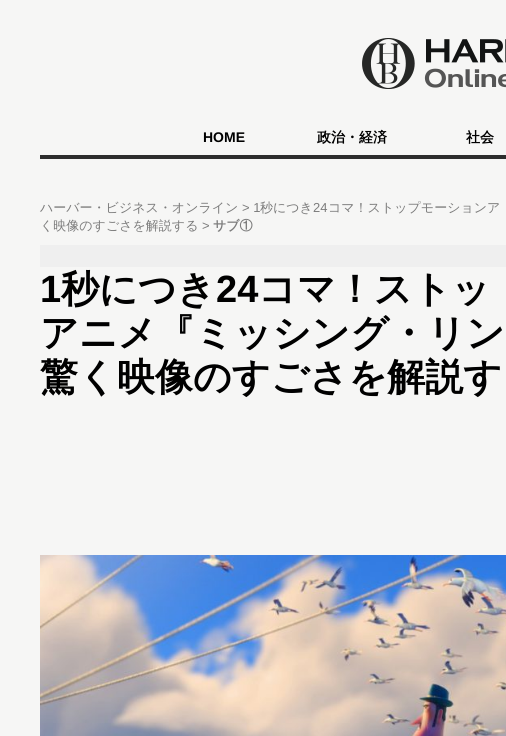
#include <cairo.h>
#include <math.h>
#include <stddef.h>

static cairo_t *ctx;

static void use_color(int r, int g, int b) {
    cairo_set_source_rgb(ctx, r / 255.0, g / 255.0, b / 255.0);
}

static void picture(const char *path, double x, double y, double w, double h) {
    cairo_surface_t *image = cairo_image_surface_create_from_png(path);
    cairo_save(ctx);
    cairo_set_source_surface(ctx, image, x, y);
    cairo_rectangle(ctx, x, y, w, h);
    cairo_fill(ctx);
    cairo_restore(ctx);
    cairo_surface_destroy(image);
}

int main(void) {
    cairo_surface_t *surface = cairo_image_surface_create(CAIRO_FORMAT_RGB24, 506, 736);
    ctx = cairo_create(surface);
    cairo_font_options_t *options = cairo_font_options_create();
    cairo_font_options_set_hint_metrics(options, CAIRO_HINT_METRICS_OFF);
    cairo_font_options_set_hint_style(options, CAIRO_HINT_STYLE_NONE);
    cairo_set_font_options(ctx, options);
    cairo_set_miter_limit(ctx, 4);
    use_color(246, 246, 245);
    cairo_paint(ctx);
    picture("img1.png", 362, 38, 144, 51);
    cairo_select_font_face(ctx, "Liberation Sans", CAIRO_FONT_SLANT_NORMAL, CAIRO_FONT_WEIGHT_BOLD);
    cairo_set_font_size(ctx, 14);
    use_color(0, 0, 0);
    cairo_move_to(ctx, 203, 142);
    cairo_show_text(ctx, "HOME");
    cairo_select_font_face(ctx, "WenQuanYi Zen Hei", CAIRO_FONT_SLANT_NORMAL, CAIRO_FONT_WEIGHT_BOLD);
    cairo_move_to(ctx, 317, 142);
    cairo_show_text(ctx, "政治・経済");
    cairo_move_to(ctx, 466, 142);
    cairo_show_text(ctx, "社会");
    use_color(45, 45, 45);
    cairo_rectangle(ctx, 40, 155, 466, 4);
    cairo_fill(ctx);
    cairo_select_font_face(ctx, "WenQuanYi Zen Hei Medium", CAIRO_FONT_SLANT_NORMAL, CAIRO_FONT_WEIGHT_NORMAL);
    cairo_set_font_size(ctx, 13);
    use_color(124, 124, 124);
    cairo_move_to(ctx, 40, 212);
    cairo_show_text(ctx, "ハーバー・ビジネス・オンライン");
    cairo_select_font_face(ctx, "Liberation Sans", CAIRO_FONT_SLANT_NORMAL, CAIRO_FONT_WEIGHT_NORMAL);
    cairo_move_to(ctx, 242, 212);
    cairo_show_text(ctx, "> 1");
    cairo_select_font_face(ctx, "WenQuanYi Zen Hei Medium", CAIRO_FONT_SLANT_NORMAL, CAIRO_FONT_WEIGHT_NORMAL);
    cairo_move_to(ctx, 260, 212);
    cairo_show_text(ctx, "秒につき");
    cairo_select_font_face(ctx, "Liberation Sans", CAIRO_FONT_SLANT_NORMAL, CAIRO_FONT_WEIGHT_NORMAL);
    cairo_move_to(ctx, 313, 212);
    cairo_show_text(ctx, "24");
    cairo_select_font_face(ctx, "WenQuanYi Zen Hei Medium", CAIRO_FONT_SLANT_NORMAL, CAIRO_FONT_WEIGHT_NORMAL);
    cairo_move_to(ctx, 328, 212);
    cairo_show_text(ctx, "コマ！ストップモーションア");
    cairo_move_to(ctx, 40, 230);
    cairo_show_text(ctx, "く映像のすごさを解説する");
    cairo_select_font_face(ctx, "Liberation Sans", CAIRO_FONT_SLANT_NORMAL, CAIRO_FONT_WEIGHT_NORMAL);
    cairo_move_to(ctx, 202, 230);
    cairo_show_text(ctx, ">");
    cairo_select_font_face(ctx, "WenQuanYi Zen Hei", CAIRO_FONT_SLANT_NORMAL, CAIRO_FONT_WEIGHT_BOLD);
    cairo_move_to(ctx, 213, 230);
    cairo_show_text(ctx, "サブ①");
    use_color(239, 239, 239);
    cairo_rectangle(ctx, 40, 245, 466, 22);
    cairo_fill(ctx);
    cairo_select_font_face(ctx, "Liberation Sans", CAIRO_FONT_SLANT_NORMAL, CAIRO_FONT_WEIGHT_BOLD);
    cairo_set_font_size(ctx, 38);
    use_color(0, 0, 0);
    cairo_move_to(ctx, 40, 302);
    cairo_show_text(ctx, "1");
    cairo_select_font_face(ctx, "WenQuanYi Zen Hei", CAIRO_FONT_SLANT_NORMAL, CAIRO_FONT_WEIGHT_BOLD);
    cairo_move_to(ctx, 61, 302);
    cairo_show_text(ctx, "秒につき");
    cairo_select_font_face(ctx, "Liberation Sans", CAIRO_FONT_SLANT_NORMAL, CAIRO_FONT_WEIGHT_BOLD);
    cairo_move_to(ctx, 216, 302);
    cairo_show_text(ctx, "24");
    cairo_select_font_face(ctx, "WenQuanYi Zen Hei", CAIRO_FONT_SLANT_NORMAL, CAIRO_FONT_WEIGHT_BOLD);
    cairo_move_to(ctx, 258, 302);
    cairo_show_text(ctx, "コマ！ストッ");
    cairo_move_to(ctx, 40, 346);
    cairo_show_text(ctx, "アニメ『ミッシング・リン");
    cairo_move_to(ctx, 40, 390);
    cairo_show_text(ctx, "驚く映像のすごさを解説す");
    picture("img2.png", 40, 555, 466, 181);
    cairo_surface_write_to_png(surface, "result.png");
    cairo_font_options_destroy(options);
    cairo_destroy(ctx);
    cairo_surface_destroy(surface);
    return 0;
}
